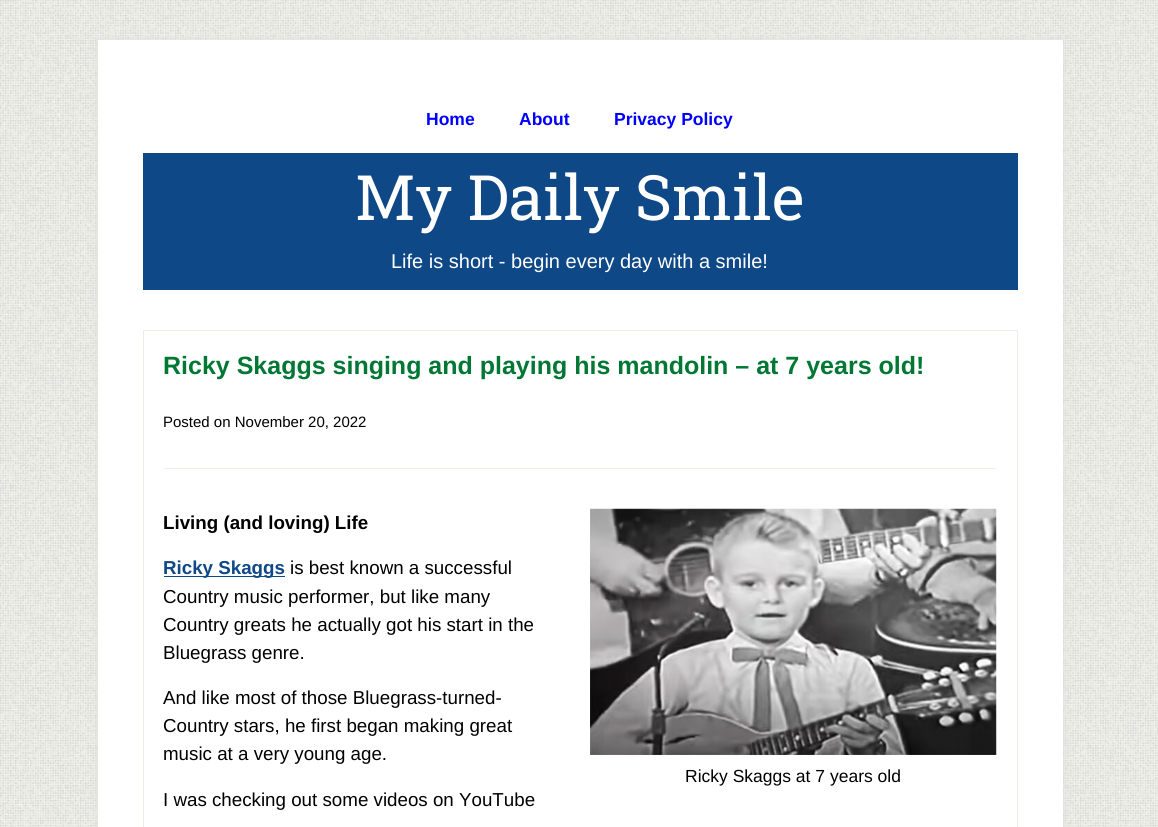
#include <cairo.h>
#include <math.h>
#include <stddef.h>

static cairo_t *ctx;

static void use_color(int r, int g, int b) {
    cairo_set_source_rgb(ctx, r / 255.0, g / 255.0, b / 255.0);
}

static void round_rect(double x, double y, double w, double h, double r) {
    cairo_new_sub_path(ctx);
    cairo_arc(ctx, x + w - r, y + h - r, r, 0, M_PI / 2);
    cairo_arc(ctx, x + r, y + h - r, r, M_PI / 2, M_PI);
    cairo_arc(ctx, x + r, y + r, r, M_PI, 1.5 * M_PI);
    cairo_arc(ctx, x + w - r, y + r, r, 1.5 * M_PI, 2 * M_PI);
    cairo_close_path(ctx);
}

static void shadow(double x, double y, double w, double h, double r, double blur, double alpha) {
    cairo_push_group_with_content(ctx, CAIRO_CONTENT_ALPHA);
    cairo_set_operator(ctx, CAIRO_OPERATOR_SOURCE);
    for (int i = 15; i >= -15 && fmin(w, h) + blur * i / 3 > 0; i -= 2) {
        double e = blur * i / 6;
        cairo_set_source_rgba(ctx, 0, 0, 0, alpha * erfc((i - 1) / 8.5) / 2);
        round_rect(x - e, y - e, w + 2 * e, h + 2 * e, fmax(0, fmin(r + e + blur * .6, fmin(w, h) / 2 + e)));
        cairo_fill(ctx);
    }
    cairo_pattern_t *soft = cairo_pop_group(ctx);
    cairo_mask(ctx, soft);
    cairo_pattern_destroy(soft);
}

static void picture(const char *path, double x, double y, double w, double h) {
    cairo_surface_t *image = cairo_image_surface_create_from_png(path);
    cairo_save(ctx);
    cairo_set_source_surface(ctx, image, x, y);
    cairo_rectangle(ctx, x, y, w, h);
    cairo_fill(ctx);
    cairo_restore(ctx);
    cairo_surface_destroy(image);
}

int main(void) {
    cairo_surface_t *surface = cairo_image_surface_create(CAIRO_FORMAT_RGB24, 1158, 827);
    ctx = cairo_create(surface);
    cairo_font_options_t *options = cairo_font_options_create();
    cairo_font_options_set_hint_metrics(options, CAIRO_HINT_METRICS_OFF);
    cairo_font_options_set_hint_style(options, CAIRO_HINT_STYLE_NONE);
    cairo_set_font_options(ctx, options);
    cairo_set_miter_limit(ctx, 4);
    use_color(255, 255, 255);
    cairo_paint(ctx);
    picture("img1.png", 0, 0, 1158, 827);
    use_color(221, 221, 221);
    shadow(98, 40, 965, 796, 0, 3, 1);
    use_color(255, 255, 255);
    cairo_rectangle(ctx, 98, 40, 965, 787);
    cairo_fill(ctx);
    cairo_select_font_face(ctx, "Liberation Sans", CAIRO_FONT_SLANT_NORMAL, CAIRO_FONT_WEIGHT_BOLD);
    cairo_set_font_size(ctx, 17.5);
    use_color(0, 0, 255);
    cairo_move_to(ctx, 426, 125);
    cairo_show_text(ctx, "Home");
    cairo_move_to(ctx, 519, 125);
    cairo_show_text(ctx, "About");
    cairo_move_to(ctx, 614, 125);
    cairo_show_text(ctx, "Privacy Policy");
    use_color(15, 72, 135);
    cairo_rectangle(ctx, 143, 153, 875, 137);
    cairo_fill(ctx);
    cairo_select_font_face(ctx, "Roboto Slab", CAIRO_FONT_SLANT_NORMAL, CAIRO_FONT_WEIGHT_NORMAL);
    cairo_set_font_size(ctx, 62.5);
    use_color(255, 255, 255);
    cairo_move_to(ctx, 355, 220);
    cairo_show_text(ctx, "My Daily Smile");
    cairo_select_font_face(ctx, "Liberation Sans", CAIRO_FONT_SLANT_NORMAL, CAIRO_FONT_WEIGHT_NORMAL);
    cairo_set_font_size(ctx, 20);
    cairo_move_to(ctx, 391, 268);
    cairo_show_text(ctx, "Life is short - begin every day with a smile!");
    cairo_rectangle(ctx, 143.5, 330.5, 874, 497);
    use_color(238, 238, 232);
    cairo_set_line_width(ctx, 1);
    cairo_stroke(ctx);
    cairo_rectangle(ctx, 164, 468, 832, 1);
    cairo_fill(ctx);
    cairo_select_font_face(ctx, "Liberation Sans", CAIRO_FONT_SLANT_NORMAL, CAIRO_FONT_WEIGHT_BOLD);
    cairo_set_font_size(ctx, 25);
    use_color(0, 119, 51);
    cairo_move_to(ctx, 163, 374);
    cairo_show_text(ctx, "Ricky Skaggs singing and playing his mandolin – at 7 years old!");
    cairo_select_font_face(ctx, "Liberation Sans", CAIRO_FONT_SLANT_NORMAL, CAIRO_FONT_WEIGHT_NORMAL);
    cairo_set_font_size(ctx, 15);
    use_color(0, 0, 0);
    cairo_move_to(ctx, 163, 427);
    cairo_show_text(ctx, "Posted on November 20, 2022");
    cairo_select_font_face(ctx, "Liberation Sans", CAIRO_FONT_SLANT_NORMAL, CAIRO_FONT_WEIGHT_BOLD);
    cairo_set_font_size(ctx, 18.75);
    cairo_move_to(ctx, 163, 529);
    cairo_show_text(ctx, "Living (and loving) Life");
    use_color(15, 72, 135);
    cairo_rectangle(ctx, 164, 576, 121, 1);
    cairo_fill(ctx);
    cairo_move_to(ctx, 163, 574);
    cairo_show_text(ctx, "Ricky Skaggs");
    cairo_select_font_face(ctx, "Liberation Sans", CAIRO_FONT_SLANT_NORMAL, CAIRO_FONT_WEIGHT_NORMAL);
    use_color(0, 0, 0);
    cairo_move_to(ctx, 290, 574);
    cairo_show_text(ctx, "is best known a successful");
    cairo_move_to(ctx, 163, 603);
    cairo_show_text(ctx, "Country music performer, but like many");
    cairo_move_to(ctx, 163, 631);
    cairo_show_text(ctx, "Country greats he actually got his start in the");
    cairo_move_to(ctx, 163, 659);
    cairo_show_text(ctx, "Bluegrass genre.");
    cairo_move_to(ctx, 163, 704);
    cairo_show_text(ctx, "And like most of those Bluegrass-turned-");
    cairo_move_to(ctx, 163, 732);
    cairo_show_text(ctx, "Country stars, he first began making great");
    cairo_move_to(ctx, 163, 760);
    cairo_show_text(ctx, "music at a very young age.");
    picture("img2.png", 590, 508, 407, 247);
    cairo_set_font_size(ctx, 17.5);
    cairo_move_to(ctx, 685, 782);
    cairo_show_text(ctx, "Ricky Skaggs at 7 years old");
    cairo_set_font_size(ctx, 18.75);
    cairo_move_to(ctx, 163, 806);
    cairo_show_text(ctx, "I was checking out some videos on YouTube");
    cairo_surface_write_to_png(surface, "result.png");
    cairo_font_options_destroy(options);
    cairo_destroy(ctx);
    cairo_surface_destroy(surface);
    return 0;
}
